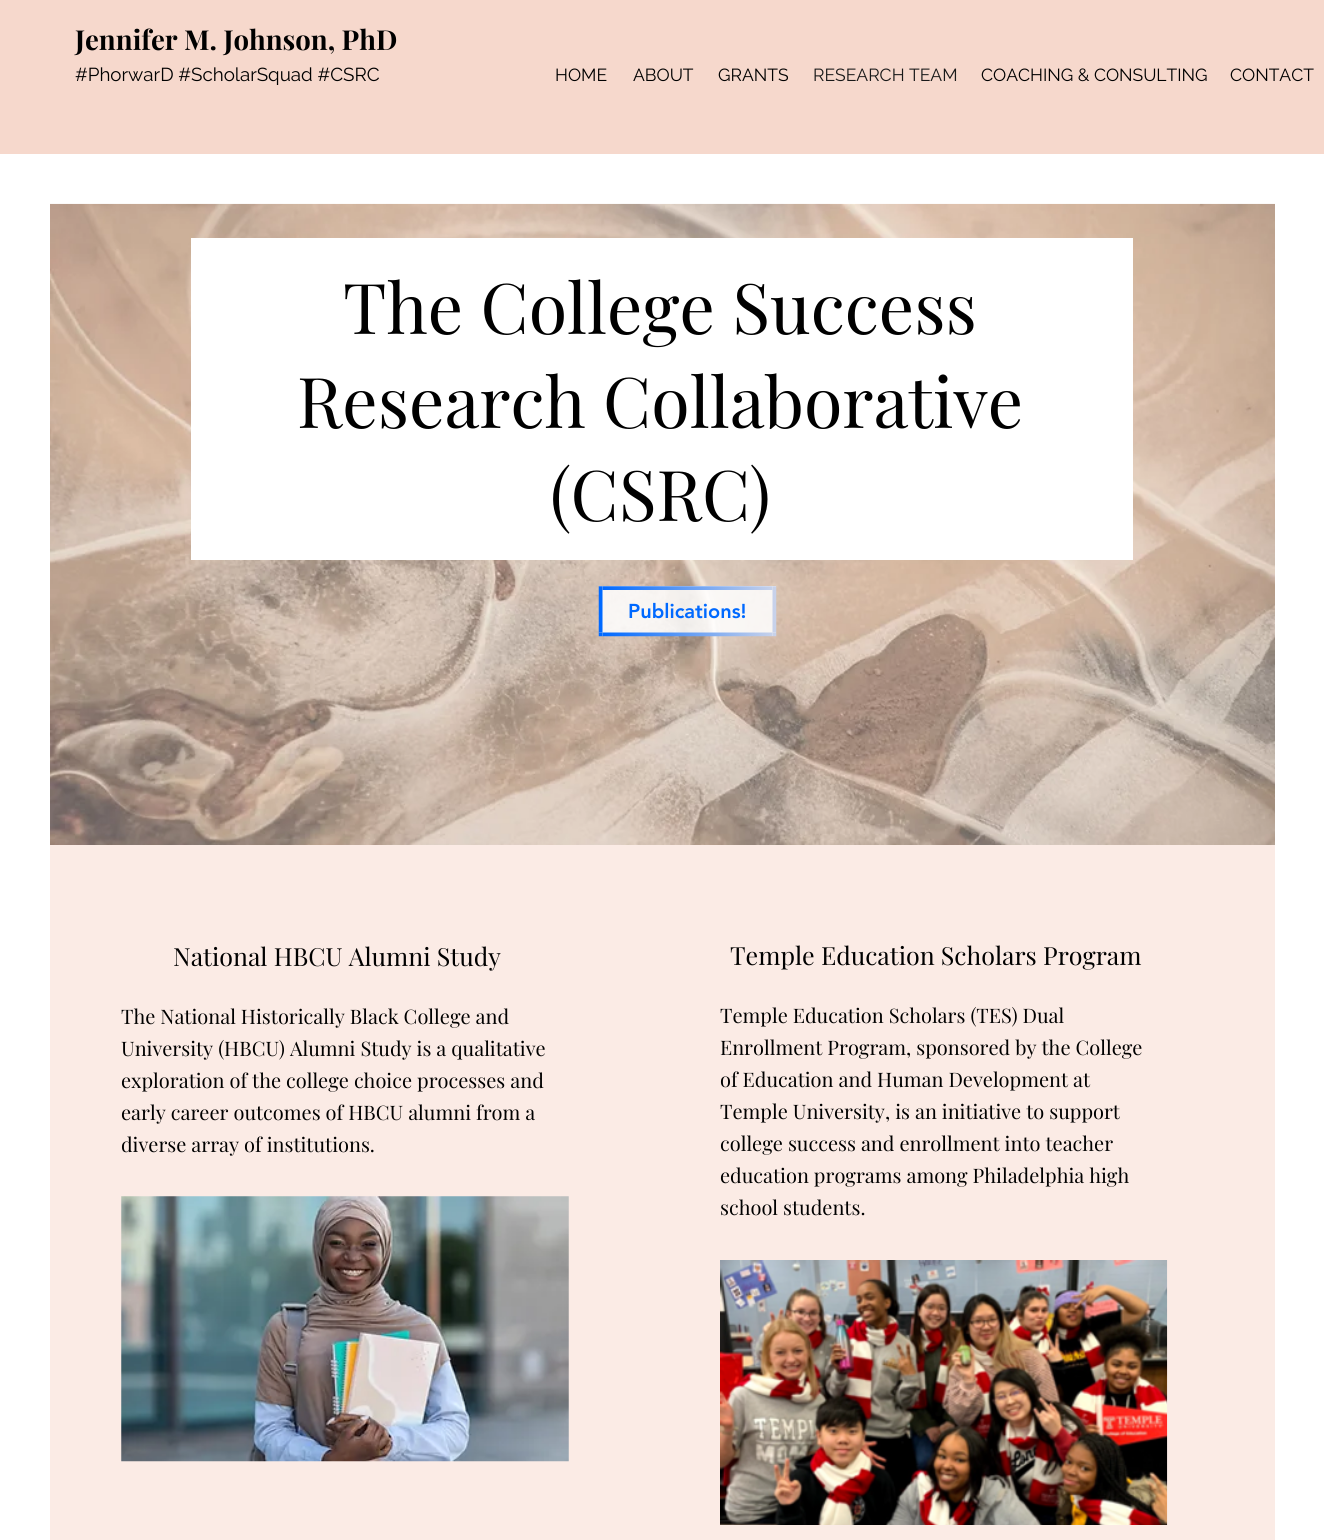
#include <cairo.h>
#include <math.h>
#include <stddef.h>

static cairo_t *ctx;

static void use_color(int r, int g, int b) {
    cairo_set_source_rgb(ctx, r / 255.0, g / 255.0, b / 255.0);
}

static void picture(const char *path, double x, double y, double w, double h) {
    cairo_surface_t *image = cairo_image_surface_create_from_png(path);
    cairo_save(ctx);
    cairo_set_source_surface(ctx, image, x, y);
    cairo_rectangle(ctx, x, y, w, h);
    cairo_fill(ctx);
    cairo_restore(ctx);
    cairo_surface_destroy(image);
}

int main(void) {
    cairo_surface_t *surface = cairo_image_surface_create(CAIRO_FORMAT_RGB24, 1324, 1540);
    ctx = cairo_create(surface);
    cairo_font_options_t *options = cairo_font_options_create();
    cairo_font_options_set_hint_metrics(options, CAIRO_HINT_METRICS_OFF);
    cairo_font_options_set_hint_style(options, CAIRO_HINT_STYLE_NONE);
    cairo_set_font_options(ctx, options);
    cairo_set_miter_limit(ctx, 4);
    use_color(255, 255, 255);
    cairo_paint(ctx);
    use_color(246, 216, 204);
    cairo_rectangle(ctx, 0, 0, 1324, 154);
    cairo_fill(ctx);
    cairo_select_font_face(ctx, "Playfair Display", CAIRO_FONT_SLANT_NORMAL, CAIRO_FONT_WEIGHT_BOLD);
    cairo_set_font_size(ctx, 27.5);
    use_color(0, 0, 0);
    cairo_move_to(ctx, 75, 50);
    cairo_show_text(ctx, "Jennifer M. Johnson, PhD");
    cairo_select_font_face(ctx, "Raleway", CAIRO_FONT_SLANT_NORMAL, CAIRO_FONT_WEIGHT_NORMAL);
    cairo_set_font_size(ctx, 18.75);
    cairo_move_to(ctx, 75, 81);
    cairo_show_text(ctx, "#PhorwarD #ScholarSquad #CSRC");
    cairo_set_font_size(ctx, 17.5);
    cairo_move_to(ctx, 555, 81);
    cairo_show_text(ctx, "HOME");
    cairo_move_to(ctx, 633, 81);
    cairo_show_text(ctx, "ABOUT");
    cairo_move_to(ctx, 718, 81);
    cairo_show_text(ctx, "GRANTS");
    use_color(25, 25, 25);
    cairo_move_to(ctx, 813, 81);
    cairo_show_text(ctx, "RESEARCH TEAM");
    use_color(0, 0, 0);
    cairo_move_to(ctx, 981, 81);
    cairo_show_text(ctx, "COACHING & CONSULTING");
    cairo_move_to(ctx, 1230, 81);
    cairo_show_text(ctx, "CONTACT");
    picture("img1.png", 50, 203, 1225, 642);
    use_color(255, 255, 255);
    cairo_rectangle(ctx, 191, 238, 942, 322);
    cairo_fill(ctx);
    cairo_select_font_face(ctx, "Playfair Display", CAIRO_FONT_SLANT_NORMAL, CAIRO_FONT_WEIGHT_NORMAL);
    cairo_set_font_size(ctx, 70);
    use_color(0, 0, 0);
    cairo_move_to(ctx, 343, 334);
    cairo_show_text(ctx, "The College Success");
    cairo_move_to(ctx, 297, 428);
    cairo_show_text(ctx, "Research Collaborative");
    cairo_move_to(ctx, 550, 521);
    cairo_show_text(ctx, "(CSRC)");
    cairo_set_source_rgba(ctx, 1, 1, 1, 0.85);
    cairo_rectangle(ctx, 599, 586, 177, 50);
    cairo_fill(ctx);
    picture("img2.png", 598, 586, 179, 51);
    cairo_select_font_face(ctx, "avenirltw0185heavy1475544 Black", CAIRO_FONT_SLANT_NORMAL, CAIRO_FONT_WEIGHT_NORMAL);
    cairo_set_font_size(ctx, 20);
    use_color(0, 105, 255);
    cairo_move_to(ctx, 628, 618);
    cairo_show_text(ctx, "Publications!");
    use_color(251, 235, 229);
    cairo_rectangle(ctx, 50, 845, 1225, 695);
    cairo_fill(ctx);
    cairo_select_font_face(ctx, "Playfair Display", CAIRO_FONT_SLANT_NORMAL, CAIRO_FONT_WEIGHT_NORMAL);
    cairo_set_font_size(ctx, 25);
    use_color(0, 0, 0);
    cairo_move_to(ctx, 173, 966);
    cairo_show_text(ctx, "National HBCU Alumni Study");
    cairo_set_font_size(ctx, 20);
    cairo_move_to(ctx, 121, 1024);
    cairo_show_text(ctx, "The National Historically Black College and");
    cairo_move_to(ctx, 121, 1056);
    cairo_show_text(ctx, "University (HBCU) Alumni Study is a qualitative");
    cairo_move_to(ctx, 121, 1088);
    cairo_show_text(ctx, "exploration of the college choice processes and");
    cairo_move_to(ctx, 121, 1120);
    cairo_show_text(ctx, "early career outcomes of HBCU alumni from a");
    cairo_move_to(ctx, 121, 1152);
    cairo_show_text(ctx, "diverse array of institutions.");
    picture("img3.png", 121, 1196, 448, 266);
    cairo_set_font_size(ctx, 25);
    cairo_move_to(ctx, 730, 965);
    cairo_show_text(ctx, "Temple Education Scholars Program");
    cairo_set_font_size(ctx, 20);
    cairo_move_to(ctx, 720, 1023);
    cairo_show_text(ctx, "Temple Education Scholars (TES) Dual");
    cairo_move_to(ctx, 720, 1055);
    cairo_show_text(ctx, "Enrollment Program, sponsored by the College");
    cairo_move_to(ctx, 720, 1087);
    cairo_show_text(ctx, "of Education and Human Development at");
    cairo_move_to(ctx, 720, 1119);
    cairo_show_text(ctx, "Temple University, is an initiative to support");
    cairo_move_to(ctx, 720, 1151);
    cairo_show_text(ctx, "college success and enrollment into teacher");
    cairo_move_to(ctx, 720, 1183);
    cairo_show_text(ctx, "education programs among Philadelphia high");
    cairo_move_to(ctx, 720, 1215);
    cairo_show_text(ctx, "school students.");
    picture("img4.png", 720, 1260, 448, 265);
    cairo_surface_write_to_png(surface, "result.png");
    cairo_font_options_destroy(options);
    cairo_destroy(ctx);
    cairo_surface_destroy(surface);
    return 0;
}
